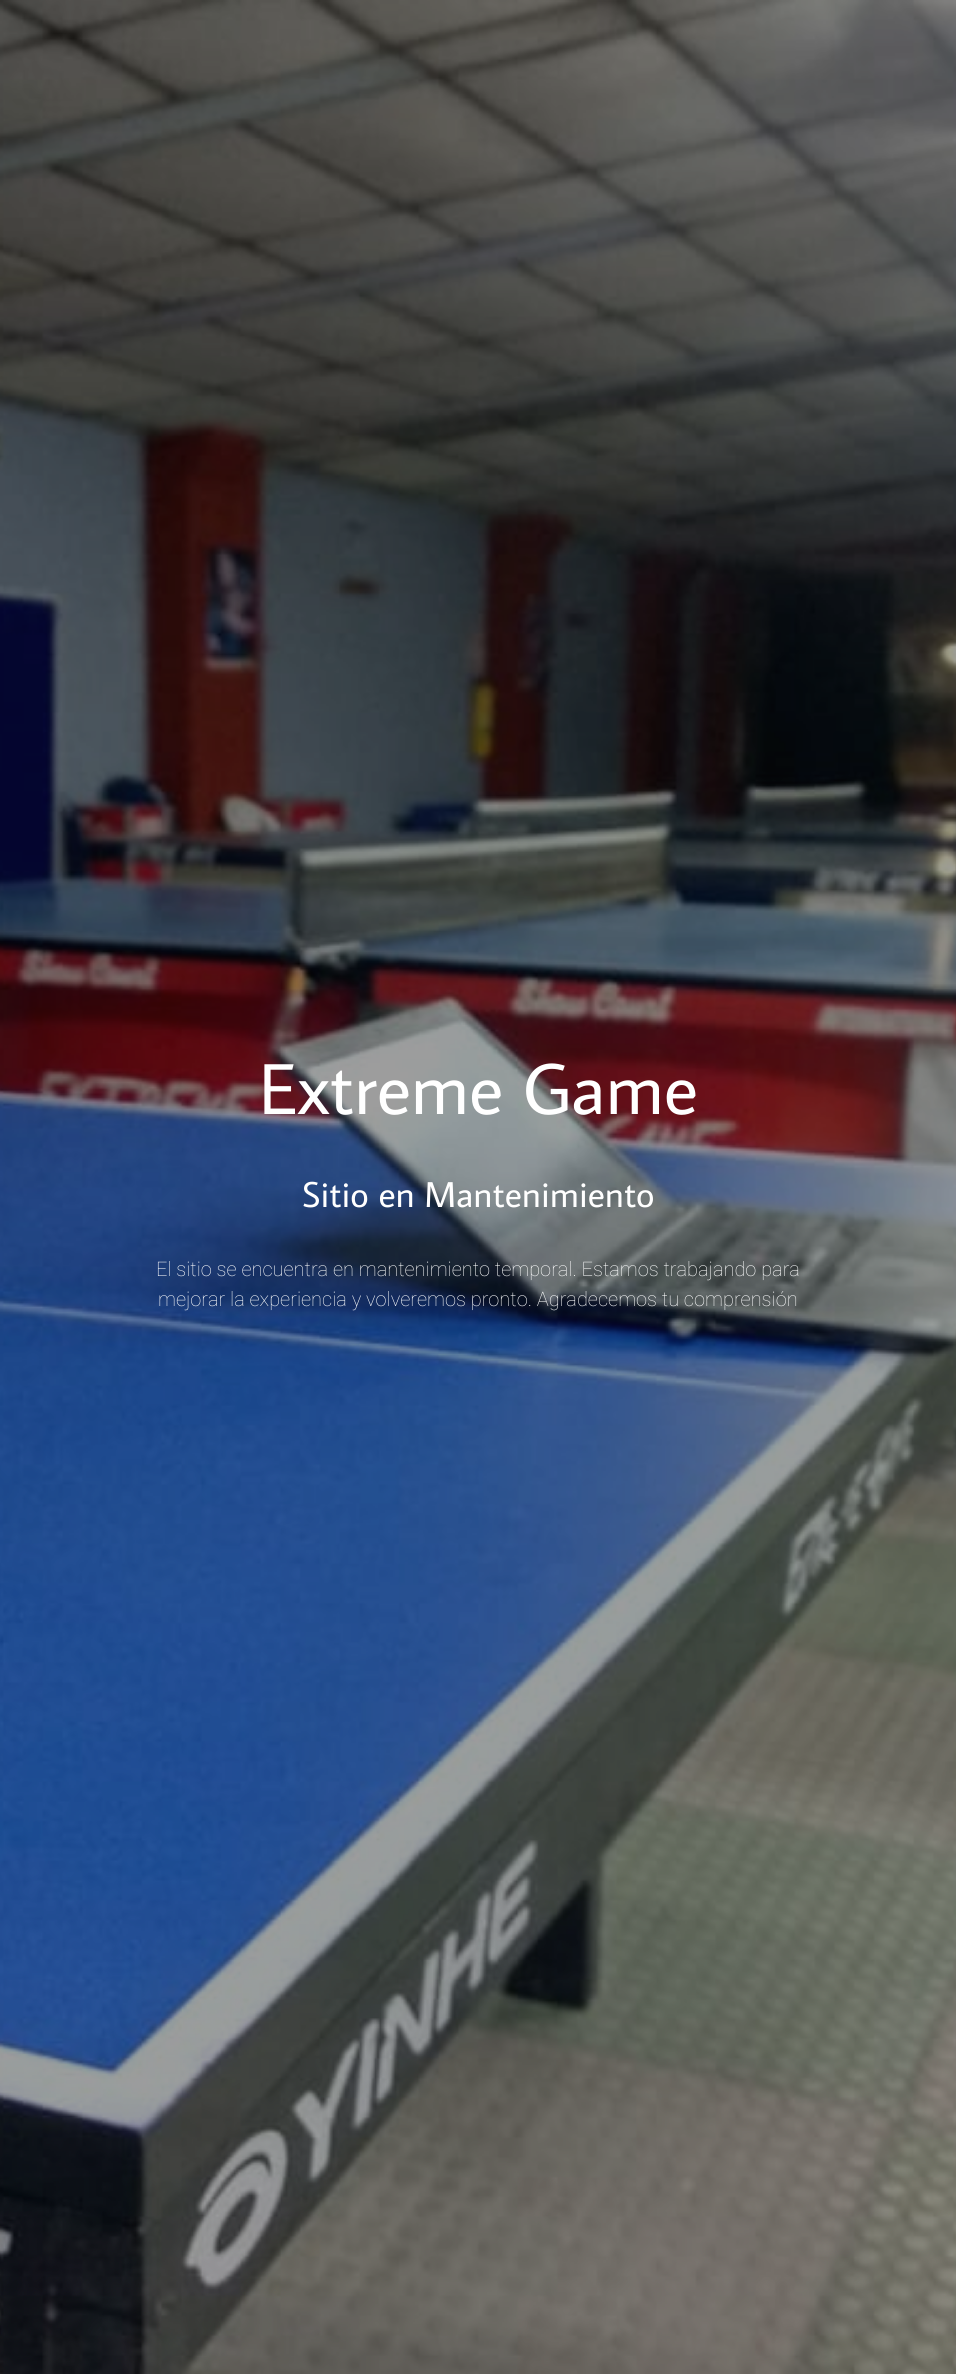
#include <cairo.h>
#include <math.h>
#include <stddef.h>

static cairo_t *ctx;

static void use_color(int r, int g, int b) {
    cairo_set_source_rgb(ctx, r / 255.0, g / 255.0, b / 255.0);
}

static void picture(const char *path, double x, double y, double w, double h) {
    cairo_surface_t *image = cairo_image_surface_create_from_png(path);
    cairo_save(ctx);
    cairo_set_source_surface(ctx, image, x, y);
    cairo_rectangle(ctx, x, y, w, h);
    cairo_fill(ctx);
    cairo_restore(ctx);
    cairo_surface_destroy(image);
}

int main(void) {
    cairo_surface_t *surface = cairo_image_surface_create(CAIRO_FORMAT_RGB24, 956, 2374);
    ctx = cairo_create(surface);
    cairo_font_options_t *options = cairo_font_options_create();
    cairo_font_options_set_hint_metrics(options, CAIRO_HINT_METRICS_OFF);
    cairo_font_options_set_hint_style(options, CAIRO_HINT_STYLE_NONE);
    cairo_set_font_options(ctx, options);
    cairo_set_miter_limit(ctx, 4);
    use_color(255, 255, 255);
    cairo_paint(ctx);
    picture("img1.png", 0, 0, 956, 2374);
    cairo_select_font_face(ctx, "Average Sans", CAIRO_FONT_SLANT_NORMAL, CAIRO_FONT_WEIGHT_NORMAL);
    cairo_set_font_size(ctx, 72);
    use_color(255, 255, 255);
    cairo_move_to(ctx, 259, 1114);
    cairo_show_text(ctx, "Extreme Game");
    cairo_set_font_size(ctx, 36);
    cairo_move_to(ctx, 302, 1207);
    cairo_show_text(ctx, "Sitio en Mantenimiento");
    cairo_select_font_face(ctx, "Roboto Thin", CAIRO_FONT_SLANT_NORMAL, CAIRO_FONT_WEIGHT_NORMAL);
    cairo_set_font_size(ctx, 20);
    cairo_move_to(ctx, 156, 1276);
    cairo_show_text(ctx, "El sitio se encuentra en mantenimiento temporal. Estamos trabajando para");
    cairo_move_to(ctx, 158, 1306);
    cairo_show_text(ctx, "mejorar la experiencia y volveremos pronto. Agradecemos tu comprensión");
    cairo_surface_write_to_png(surface, "result.png");
    cairo_font_options_destroy(options);
    cairo_destroy(ctx);
    cairo_surface_destroy(surface);
    return 0;
}
